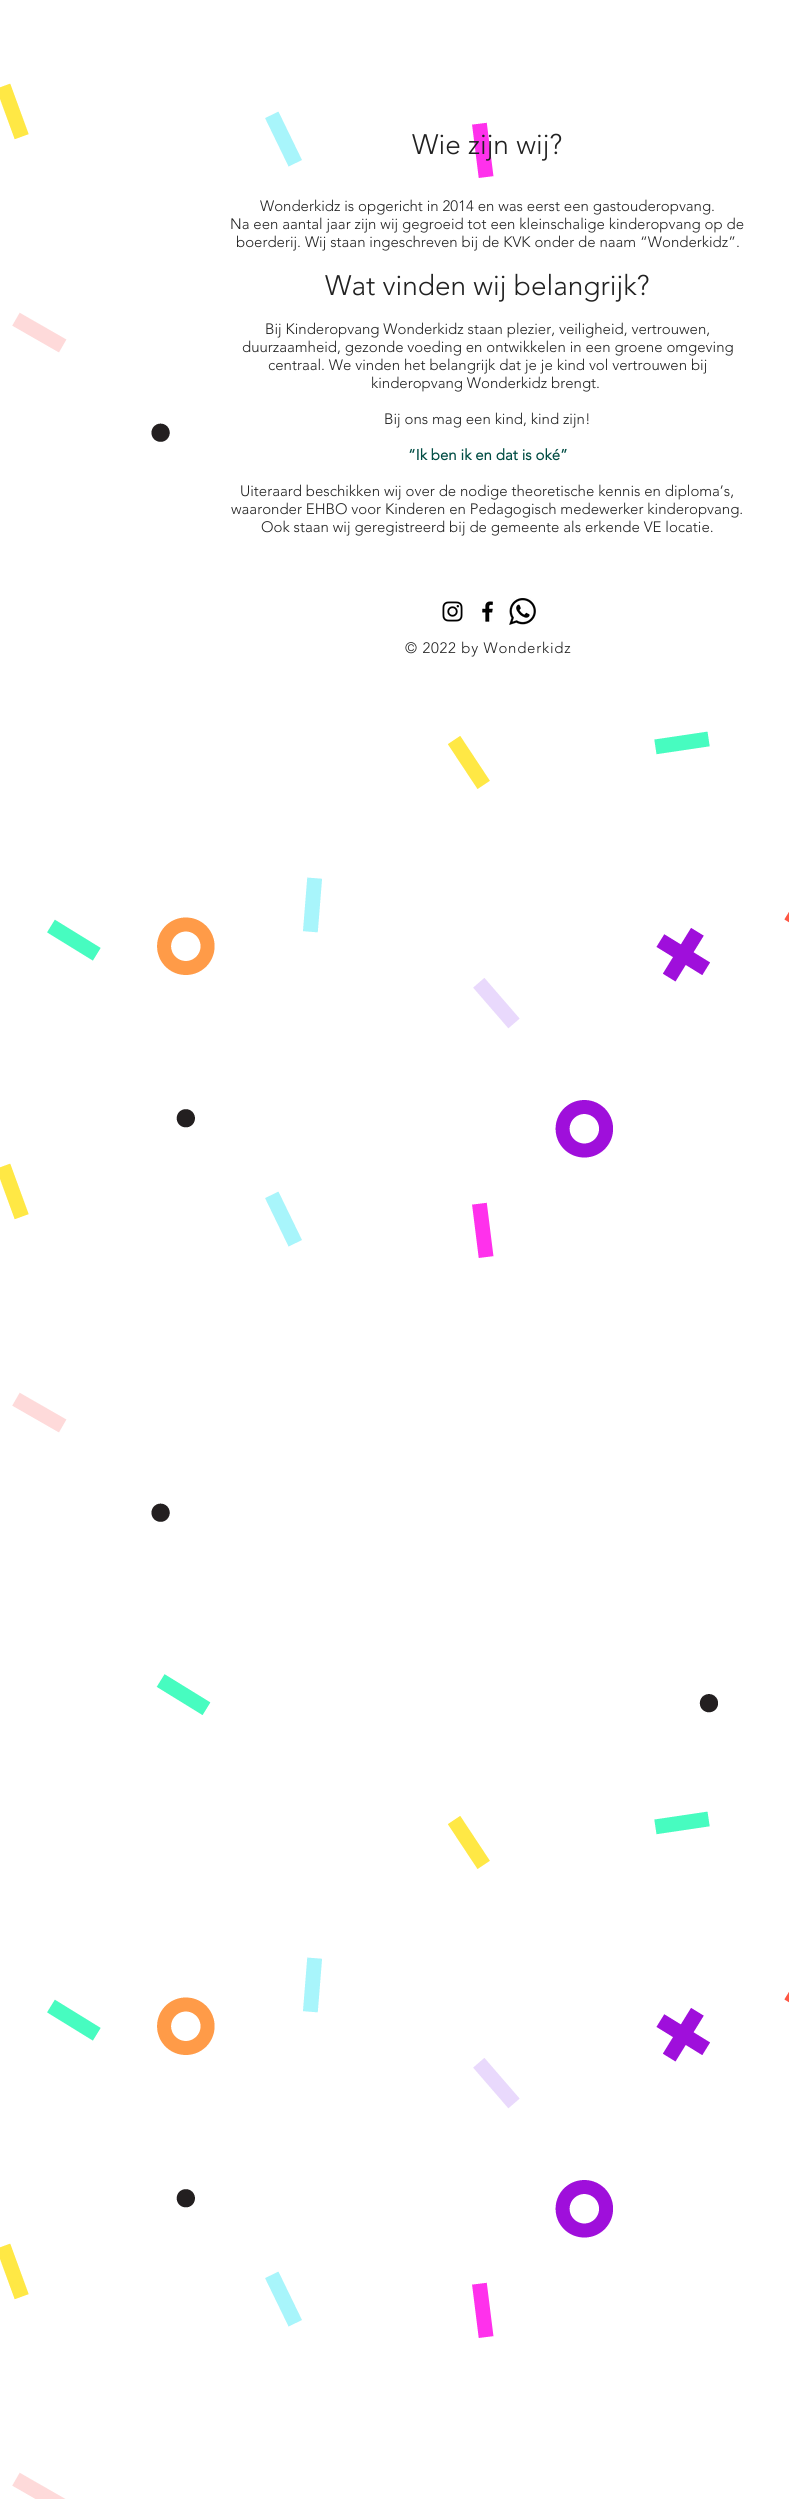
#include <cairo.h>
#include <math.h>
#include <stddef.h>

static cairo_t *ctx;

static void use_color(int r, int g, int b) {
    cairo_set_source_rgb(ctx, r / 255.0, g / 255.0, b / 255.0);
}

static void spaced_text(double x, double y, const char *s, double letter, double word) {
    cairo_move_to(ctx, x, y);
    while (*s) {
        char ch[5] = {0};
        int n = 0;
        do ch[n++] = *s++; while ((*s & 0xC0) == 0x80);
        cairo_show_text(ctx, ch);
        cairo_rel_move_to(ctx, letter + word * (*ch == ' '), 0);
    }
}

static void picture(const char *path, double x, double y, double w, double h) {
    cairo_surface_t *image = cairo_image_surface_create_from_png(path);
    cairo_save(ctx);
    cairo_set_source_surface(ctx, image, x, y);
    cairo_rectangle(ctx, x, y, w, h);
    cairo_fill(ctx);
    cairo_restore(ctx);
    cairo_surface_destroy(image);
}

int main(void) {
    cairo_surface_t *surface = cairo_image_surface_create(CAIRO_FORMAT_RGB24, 789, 2499);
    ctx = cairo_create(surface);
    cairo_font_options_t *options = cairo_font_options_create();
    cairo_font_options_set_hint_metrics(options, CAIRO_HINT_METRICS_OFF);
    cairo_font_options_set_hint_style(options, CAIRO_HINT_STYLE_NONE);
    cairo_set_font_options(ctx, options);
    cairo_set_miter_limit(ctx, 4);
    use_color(255, 255, 255);
    cairo_paint(ctx);
    picture("img1.png", 0, 83, 789, 2416);
    cairo_select_font_face(ctx, "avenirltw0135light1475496 Light", CAIRO_FONT_SLANT_NORMAL, CAIRO_FONT_WEIGHT_NORMAL);
    cairo_set_font_size(ctx, 28);
    use_color(33, 33, 33);
    cairo_move_to(ctx, 412, 154);
    cairo_show_text(ctx, "Wie zijn wij?");
    cairo_set_font_size(ctx, 15);
    cairo_move_to(ctx, 260, 211);
    cairo_show_text(ctx, "Wonderkidz is opgericht in 2014 en was eerst een gastouderopvang.");
    cairo_move_to(ctx, 230, 229);
    cairo_show_text(ctx, "Na een aantal jaar zijn wij gegroeid tot een kleinschalige kinderopvang op de");
    cairo_move_to(ctx, 236, 247);
    cairo_show_text(ctx, "boerderij. Wij staan ingeschreven bij de KVK onder de naam “Wonderkidz”.");
    cairo_set_font_size(ctx, 28);
    cairo_move_to(ctx, 325, 295);
    cairo_show_text(ctx, "Wat vinden wij belangrijk?");
    cairo_set_font_size(ctx, 15);
    cairo_move_to(ctx, 265, 334);
    cairo_show_text(ctx, "Bij Kinderopvang Wonderkidz staan plezier, veiligheid, vertrouwen,");
    cairo_move_to(ctx, 242, 352);
    cairo_show_text(ctx, "duurzaamheid, gezonde voeding en ontwikkelen in een groene omgeving");
    cairo_move_to(ctx, 268, 370);
    cairo_show_text(ctx, "centraal. We vinden het belangrijk dat je je kind vol vertrouwen bij");
    cairo_move_to(ctx, 371, 388);
    cairo_show_text(ctx, "kinderopvang Wonderkidz brengt.");
    cairo_move_to(ctx, 384, 424);
    cairo_show_text(ctx, "Bij ons mag een kind, kind zijn!");
    cairo_select_font_face(ctx, "avenirltw0135light1475496", CAIRO_FONT_SLANT_NORMAL, CAIRO_FONT_WEIGHT_BOLD);
    use_color(0, 76, 67);
    cairo_move_to(ctx, 408, 460);
    cairo_show_text(ctx, "“Ik ben ik en dat is oké”");
    cairo_select_font_face(ctx, "avenirltw0135light1475496 Light", CAIRO_FONT_SLANT_NORMAL, CAIRO_FONT_WEIGHT_NORMAL);
    use_color(33, 33, 33);
    cairo_move_to(ctx, 240, 496);
    cairo_show_text(ctx, "Uiteraard beschikken wij over de nodige theoretische kennis en diploma’s,");
    cairo_move_to(ctx, 231, 514);
    cairo_show_text(ctx, "waaronder EHBO voor Kinderen en Pedagogisch medewerker kinderopvang.");
    cairo_move_to(ctx, 261, 532);
    cairo_show_text(ctx, "Ook staan wij geregistreerd bij de gemeente als erkende VE locatie.");
    use_color(255, 255, 255);
    cairo_rectangle(ctx, 156, 594, 562, 41);
    cairo_fill(ctx);
    picture("img2.png", 442, 601, 21, 21);
    picture("img3.png", 482, 601, 11, 21);
    picture("img4.png", 509, 598, 27, 27);
    use_color(33, 33, 33);
    spaced_text(405, 653, "© 2022 by Wonderkidz", 0.75, 0);
    cairo_surface_write_to_png(surface, "result.png");
    cairo_font_options_destroy(options);
    cairo_destroy(ctx);
    cairo_surface_destroy(surface);
    return 0;
}
